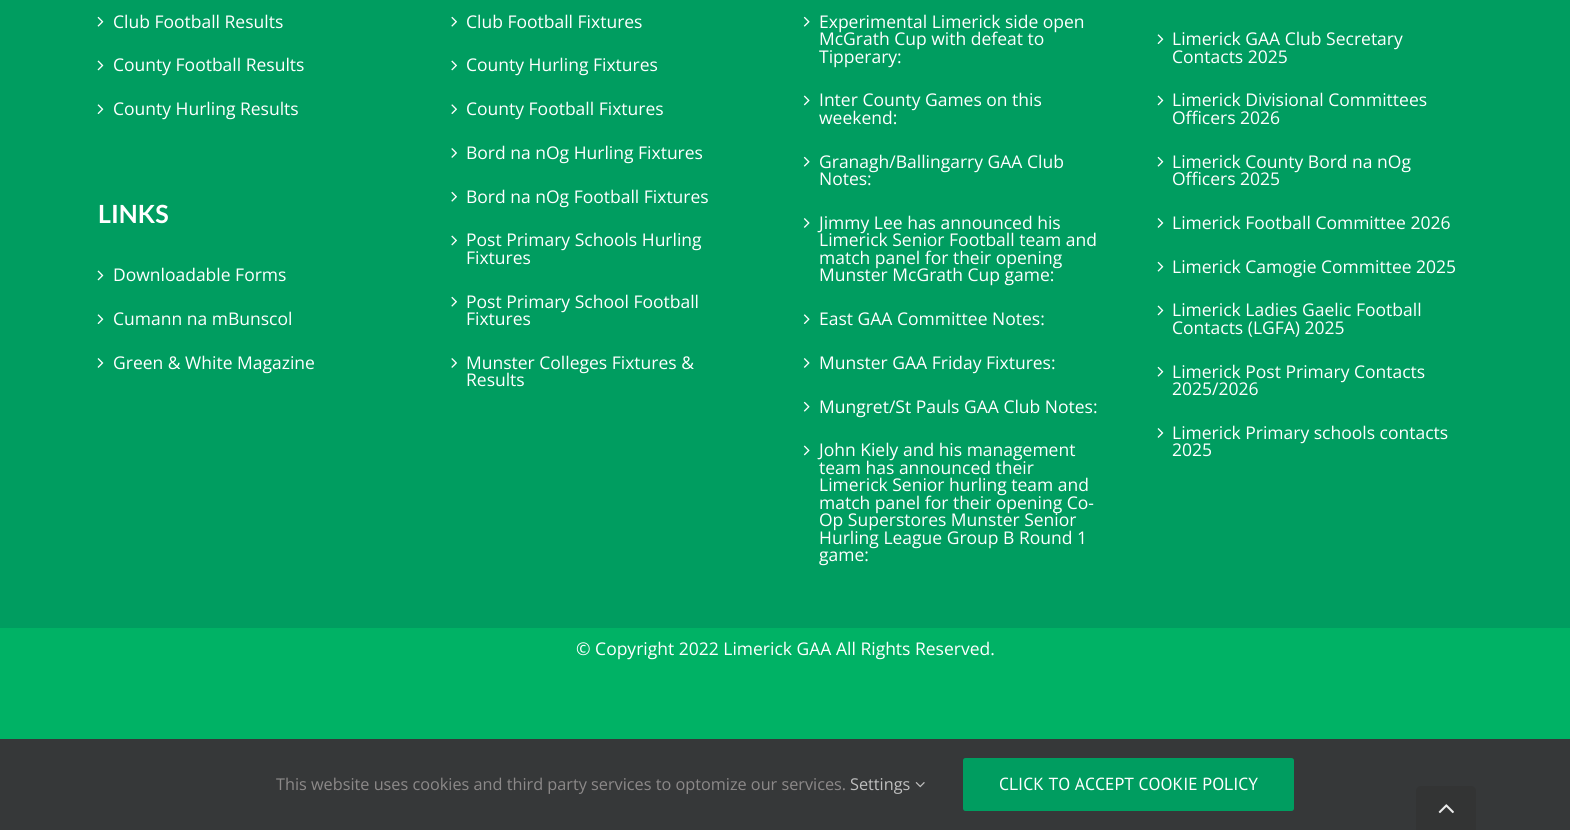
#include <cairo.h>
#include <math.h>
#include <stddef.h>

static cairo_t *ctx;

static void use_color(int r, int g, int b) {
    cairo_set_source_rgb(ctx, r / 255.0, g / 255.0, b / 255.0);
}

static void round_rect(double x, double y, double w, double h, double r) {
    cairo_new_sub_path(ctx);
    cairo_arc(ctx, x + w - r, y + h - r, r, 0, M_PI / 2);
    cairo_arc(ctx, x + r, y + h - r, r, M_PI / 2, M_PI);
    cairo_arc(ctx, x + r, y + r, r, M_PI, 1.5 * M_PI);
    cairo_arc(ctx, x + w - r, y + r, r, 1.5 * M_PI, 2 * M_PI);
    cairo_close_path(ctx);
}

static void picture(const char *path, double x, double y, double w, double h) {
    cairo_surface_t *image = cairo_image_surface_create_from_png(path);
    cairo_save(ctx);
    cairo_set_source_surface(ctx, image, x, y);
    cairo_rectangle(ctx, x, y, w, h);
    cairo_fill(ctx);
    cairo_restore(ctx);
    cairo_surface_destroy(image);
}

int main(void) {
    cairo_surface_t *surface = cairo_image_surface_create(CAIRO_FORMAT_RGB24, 1570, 830);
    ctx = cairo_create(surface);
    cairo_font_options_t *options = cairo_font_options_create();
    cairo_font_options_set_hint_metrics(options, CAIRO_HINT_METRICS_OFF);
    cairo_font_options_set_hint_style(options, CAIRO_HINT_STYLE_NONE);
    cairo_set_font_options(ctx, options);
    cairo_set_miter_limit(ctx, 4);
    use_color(0, 157, 96);
    cairo_paint(ctx);
    picture("img1.png", 97, 16, 7, 11);
    cairo_select_font_face(ctx, "Open Sans", CAIRO_FONT_SLANT_NORMAL, CAIRO_FONT_WEIGHT_NORMAL);
    cairo_set_font_size(ctx, 17.5);
    use_color(255, 255, 255);
    cairo_move_to(ctx, 113, 28);
    cairo_show_text(ctx, "Club Football Results");
    picture("img2.png", 97, 60, 7, 11);
    cairo_move_to(ctx, 113, 71);
    cairo_show_text(ctx, "County Football Results");
    picture("img3.png", 97, 104, 7, 10);
    cairo_move_to(ctx, 113, 115);
    cairo_show_text(ctx, "County Hurling Results");
    cairo_select_font_face(ctx, "Lato", CAIRO_FONT_SLANT_NORMAL, CAIRO_FONT_WEIGHT_BOLD);
    cairo_set_font_size(ctx, 25);
    cairo_move_to(ctx, 98, 223);
    cairo_show_text(ctx, "LINKS");
    picture("img2.png", 97, 270, 7, 11);
    cairo_select_font_face(ctx, "Open Sans", CAIRO_FONT_SLANT_NORMAL, CAIRO_FONT_WEIGHT_NORMAL);
    cairo_set_font_size(ctx, 17.5);
    cairo_move_to(ctx, 113, 281);
    cairo_show_text(ctx, "Downloadable Forms");
    picture("img3.png", 97, 314, 7, 10);
    cairo_move_to(ctx, 113, 325);
    cairo_show_text(ctx, "Cumann na mBunscol");
    picture("img4.png", 97, 358, 7, 10);
    cairo_move_to(ctx, 113, 369);
    cairo_show_text(ctx, "Green & White Magazine");
    picture("img5.png", 451, 16, 6, 11);
    cairo_move_to(ctx, 466, 28);
    cairo_show_text(ctx, "Club Football Fixtures");
    picture("img6.png", 451, 60, 6, 11);
    cairo_move_to(ctx, 466, 71);
    cairo_show_text(ctx, "County Hurling Fixtures");
    picture("img7.png", 451, 104, 6, 10);
    cairo_move_to(ctx, 466, 115);
    cairo_show_text(ctx, "County Football Fixtures");
    picture("img8.png", 451, 148, 6, 10);
    cairo_move_to(ctx, 466, 159);
    cairo_show_text(ctx, "Bord na nOg Hurling Fixtures");
    picture("img5.png", 451, 191, 6, 11);
    cairo_move_to(ctx, 466, 203);
    cairo_show_text(ctx, "Bord na nOg Football Fixtures");
    picture("img6.png", 451, 235, 6, 11);
    cairo_move_to(ctx, 466, 246);
    cairo_show_text(ctx, "Post Primary Schools Hurling");
    cairo_move_to(ctx, 466, 264);
    cairo_show_text(ctx, "Fixtures");
    picture("img5.png", 451, 296, 6, 11);
    cairo_move_to(ctx, 466, 308);
    cairo_show_text(ctx, "Post Primary School Football");
    cairo_move_to(ctx, 466, 325);
    cairo_show_text(ctx, "Fixtures");
    picture("img8.png", 451, 358, 6, 10);
    cairo_move_to(ctx, 466, 369);
    cairo_show_text(ctx, "Munster Colleges Fixtures &");
    cairo_move_to(ctx, 466, 386);
    cairo_show_text(ctx, "Results");
    picture("img9.png", 803, 16, 7, 11);
    cairo_move_to(ctx, 819, 28);
    cairo_show_text(ctx, "Experimental Limerick side open");
    cairo_move_to(ctx, 819, 45);
    cairo_show_text(ctx, "McGrath Cup with defeat to");
    cairo_move_to(ctx, 819, 63);
    cairo_show_text(ctx, "Tipperary:");
    picture("img10.png", 803, 95, 7, 11);
    cairo_move_to(ctx, 819, 106);
    cairo_show_text(ctx, "Inter County Games on this");
    cairo_move_to(ctx, 819, 124);
    cairo_show_text(ctx, "weekend:");
    picture("img9.png", 803, 156, 7, 11);
    cairo_move_to(ctx, 819, 168);
    cairo_show_text(ctx, "Granagh/Ballingarry GAA Club");
    cairo_move_to(ctx, 819, 185);
    cairo_show_text(ctx, "Notes:");
    picture("img11.png", 803, 218, 7, 10);
    cairo_move_to(ctx, 819, 229);
    cairo_show_text(ctx, "Jimmy Lee has announced his");
    cairo_move_to(ctx, 819, 246);
    cairo_show_text(ctx, "Limerick Senior Football team and");
    cairo_move_to(ctx, 819, 264);
    cairo_show_text(ctx, "match panel for their opening");
    cairo_move_to(ctx, 819, 281);
    cairo_show_text(ctx, "Munster McGrath Cup game:");
    picture("img12.png", 803, 314, 7, 10);
    cairo_move_to(ctx, 819, 325);
    cairo_show_text(ctx, "East GAA Committee Notes:");
    picture("img11.png", 803, 358, 7, 10);
    cairo_move_to(ctx, 819, 369);
    cairo_show_text(ctx, "Munster GAA Friday Fixtures:");
    picture("img9.png", 803, 401, 7, 11);
    cairo_move_to(ctx, 819, 413);
    cairo_show_text(ctx, "Mungret/St Pauls GAA Club Notes:");
    picture("img10.png", 803, 445, 7, 11);
    cairo_move_to(ctx, 819, 456);
    cairo_show_text(ctx, "John Kiely and his management");
    cairo_move_to(ctx, 819, 474);
    cairo_show_text(ctx, "team has announced their");
    cairo_move_to(ctx, 819, 491);
    cairo_show_text(ctx, "Limerick Senior hurling team and");
    cairo_move_to(ctx, 819, 509);
    cairo_show_text(ctx, "match panel for their opening Co-");
    cairo_move_to(ctx, 819, 526);
    cairo_show_text(ctx, "Op Superstores Munster Senior");
    cairo_move_to(ctx, 819, 544);
    cairo_show_text(ctx, "Hurling League Group B Round 1");
    cairo_move_to(ctx, 819, 561);
    cairo_show_text(ctx, "game:");
    picture("img3.png", 1157, 34, 7, 10);
    cairo_move_to(ctx, 1172, 45);
    cairo_show_text(ctx, "Limerick GAA Club Secretary");
    cairo_move_to(ctx, 1172, 63);
    cairo_show_text(ctx, "Contacts 2025");
    picture("img2.png", 1157, 95, 7, 11);
    cairo_move_to(ctx, 1172, 106);
    cairo_show_text(ctx, "Limerick Divisional Committees");
    cairo_move_to(ctx, 1172, 124);
    cairo_show_text(ctx, "Officers 2026");
    picture("img1.png", 1157, 156, 7, 11);
    cairo_move_to(ctx, 1172, 168);
    cairo_show_text(ctx, "Limerick County Bord na nOg");
    cairo_move_to(ctx, 1172, 185);
    cairo_show_text(ctx, "Officers 2025");
    picture("img4.png", 1157, 218, 7, 10);
    cairo_move_to(ctx, 1172, 229);
    cairo_show_text(ctx, "Limerick Football Committee 2026");
    picture("img1.png", 1157, 261, 7, 11);
    cairo_move_to(ctx, 1172, 273);
    cairo_show_text(ctx, "Limerick Camogie Committee 2025");
    picture("img2.png", 1157, 305, 7, 11);
    cairo_move_to(ctx, 1172, 316);
    cairo_show_text(ctx, "Limerick Ladies Gaelic Football");
    cairo_move_to(ctx, 1172, 334);
    cairo_show_text(ctx, "Contacts (LGFA) 2025");
    picture("img1.png", 1157, 366, 7, 11);
    cairo_move_to(ctx, 1172, 378);
    cairo_show_text(ctx, "Limerick Post Primary Contacts");
    cairo_move_to(ctx, 1172, 395);
    cairo_show_text(ctx, "2025/2026");
    picture("img4.png", 1157, 428, 7, 10);
    cairo_move_to(ctx, 1172, 439);
    cairo_show_text(ctx, "Limerick Primary schools contacts");
    cairo_move_to(ctx, 1172, 456);
    cairo_show_text(ctx, "2025");
    use_color(0, 178, 101);
    cairo_rectangle(ctx, 0, 628, 1570, 111);
    cairo_fill(ctx);
    use_color(255, 255, 255);
    cairo_move_to(ctx, 576, 655);
    cairo_show_text(ctx, "© Copyright 2022 Limerick GAA All Rights Reserved.");
    use_color(54, 56, 57);
    cairo_rectangle(ctx, 0, 739, 1570, 91);
    cairo_fill(ctx);
    cairo_set_font_size(ctx, 16.25);
    use_color(140, 137, 137);
    cairo_move_to(ctx, 276, 790);
    cairo_show_text(ctx, "This website uses cookies and third party services to optomize our services.");
    use_color(191, 191, 191);
    cairo_move_to(ctx, 850, 790);
    cairo_show_text(ctx, "Settings");
    picture("img13.png", 915, 782, 10, 6);
    use_color(0, 157, 96);
    round_rect(963, 758, 331, 53, 2.5);
    cairo_fill(ctx);
    cairo_select_font_face(ctx, "PT Sans", CAIRO_FONT_SLANT_NORMAL, CAIRO_FONT_WEIGHT_NORMAL);
    cairo_set_font_size(ctx, 17.5);
    use_color(255, 255, 255);
    cairo_move_to(ctx, 999, 790);
    cairo_show_text(ctx, "CLICK TO ACCEPT COOKIE POLICY");
    use_color(51, 52, 52);
    cairo_new_path(ctx);
    cairo_move_to(ctx, 1421, 786);
    cairo_line_to(ctx, 1471, 786);
    cairo_curve_to(ctx, 1474, 786, 1476, 788, 1476, 791);
    cairo_line_to(ctx, 1476, 830);
    cairo_line_to(ctx, 1416, 830);
    cairo_line_to(ctx, 1416, 791);
    cairo_curve_to(ctx, 1416, 788, 1418, 786, 1421, 786);
    cairo_close_path(ctx);
    cairo_fill(ctx);
    picture("img14.png", 1438, 804, 16, 10);
    cairo_surface_write_to_png(surface, "result.png");
    cairo_font_options_destroy(options);
    cairo_destroy(ctx);
    cairo_surface_destroy(surface);
    return 0;
}
